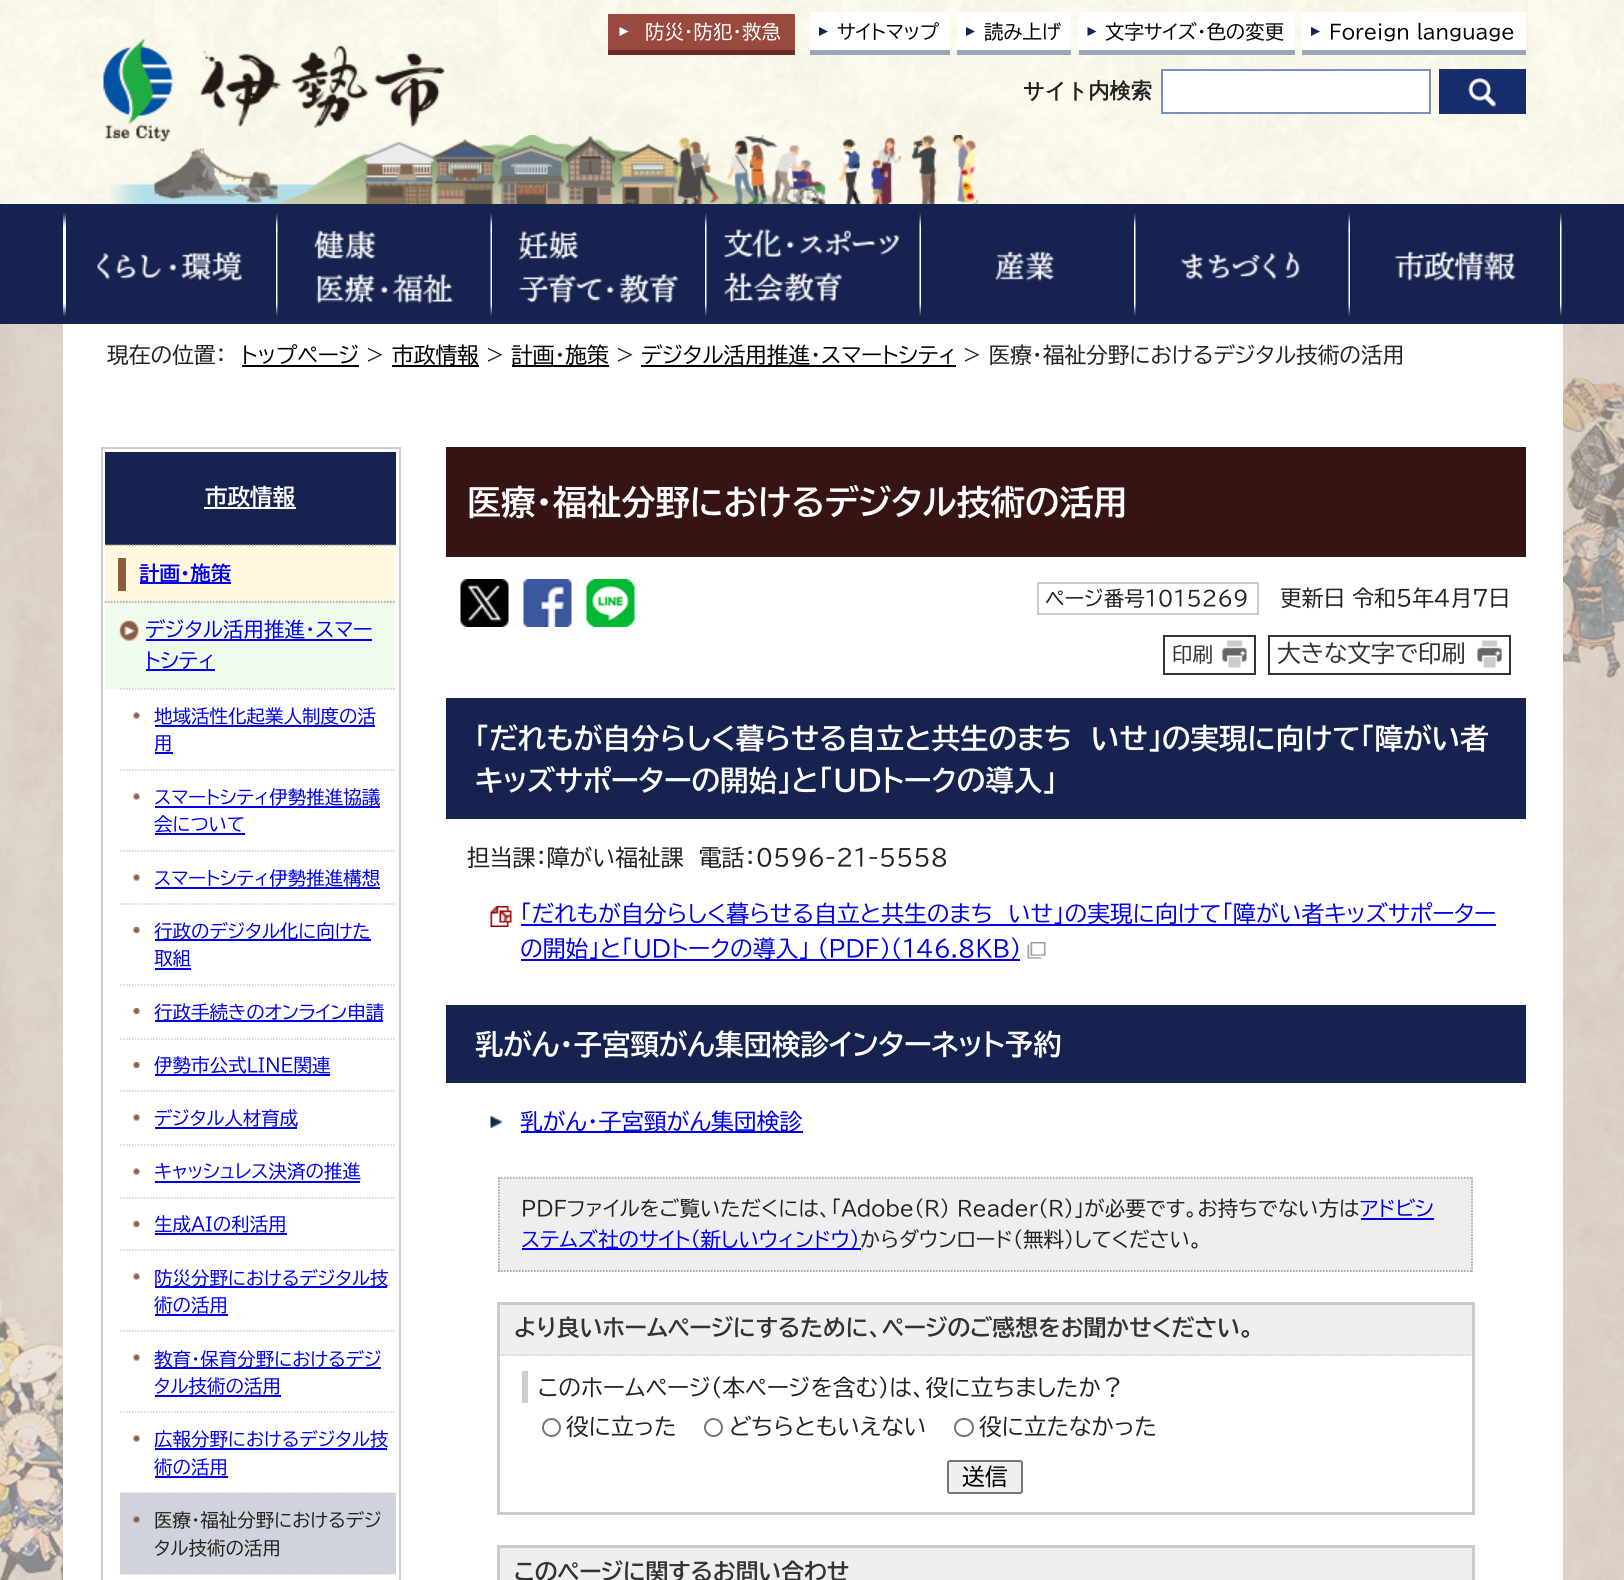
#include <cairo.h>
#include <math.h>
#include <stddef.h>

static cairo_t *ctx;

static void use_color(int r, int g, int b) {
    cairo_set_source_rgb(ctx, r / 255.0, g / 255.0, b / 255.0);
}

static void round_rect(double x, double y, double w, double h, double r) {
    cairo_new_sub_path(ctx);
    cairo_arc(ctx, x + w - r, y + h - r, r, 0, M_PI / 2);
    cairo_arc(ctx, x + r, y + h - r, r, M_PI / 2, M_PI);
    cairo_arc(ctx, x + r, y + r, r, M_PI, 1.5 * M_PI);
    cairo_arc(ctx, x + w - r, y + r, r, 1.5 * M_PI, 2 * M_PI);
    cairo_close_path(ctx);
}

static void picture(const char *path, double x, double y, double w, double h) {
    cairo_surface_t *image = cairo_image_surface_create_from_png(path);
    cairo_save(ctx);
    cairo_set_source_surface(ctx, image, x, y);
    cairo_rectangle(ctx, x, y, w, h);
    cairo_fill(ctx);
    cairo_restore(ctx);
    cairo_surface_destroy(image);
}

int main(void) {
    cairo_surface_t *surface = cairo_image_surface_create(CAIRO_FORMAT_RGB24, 1624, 1580);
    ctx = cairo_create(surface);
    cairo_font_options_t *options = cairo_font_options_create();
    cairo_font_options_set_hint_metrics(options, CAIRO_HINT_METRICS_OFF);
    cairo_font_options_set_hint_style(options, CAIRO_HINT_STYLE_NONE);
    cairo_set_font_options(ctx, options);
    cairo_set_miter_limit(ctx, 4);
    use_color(255, 255, 255);
    cairo_paint(ctx);
    picture("img1.png", 0, 0, 1624, 204);
    picture("img2.png", 109, 135, 869, 69);
    picture("img3.png", 103, 38, 342, 104);
    use_color(154, 73, 63);
    cairo_rectangle(ctx, 608, 14, 187, 36);
    cairo_fill(ctx);
    use_color(105, 43, 35);
    cairo_rectangle(ctx, 608, 50, 187, 5);
    cairo_fill(ctx);
    use_color(255, 255, 255);
    cairo_new_path(ctx);
    cairo_move_to(ctx, 619.5, 36);
    cairo_line_to(ctx, 619.5, 27);
    cairo_line_to(ctx, 628.5, 31.5);
    cairo_close_path(ctx);
    cairo_fill(ctx);
    cairo_select_font_face(ctx, "BIZ UDPGothic", CAIRO_FONT_SLANT_NORMAL, CAIRO_FONT_WEIGHT_NORMAL);
    cairo_set_font_size(ctx, 19.4);
    cairo_move_to(ctx, 645, 39);
    cairo_show_text(ctx, "防災・防犯・救急");
    cairo_rectangle(ctx, 810, 12, 140, 38);
    cairo_fill(ctx);
    use_color(153, 166, 181);
    cairo_rectangle(ctx, 810, 50, 140, 5);
    cairo_fill(ctx);
    use_color(17, 37, 82);
    cairo_new_path(ctx);
    cairo_move_to(ctx, 819, 36);
    cairo_line_to(ctx, 819, 27);
    cairo_line_to(ctx, 828, 31.5);
    cairo_close_path(ctx);
    cairo_fill(ctx);
    use_color(0, 0, 0);
    cairo_move_to(ctx, 837, 39);
    cairo_show_text(ctx, "サイトマップ");
    use_color(255, 255, 255);
    cairo_rectangle(ctx, 957, 12, 114, 38);
    cairo_fill(ctx);
    use_color(153, 166, 181);
    cairo_rectangle(ctx, 957, 50, 114, 5);
    cairo_fill(ctx);
    use_color(17, 37, 82);
    cairo_new_path(ctx);
    cairo_move_to(ctx, 966, 36);
    cairo_line_to(ctx, 966, 27);
    cairo_line_to(ctx, 975, 31.5);
    cairo_close_path(ctx);
    cairo_fill(ctx);
    use_color(0, 0, 0);
    cairo_move_to(ctx, 984, 39);
    cairo_show_text(ctx, "読み上げ");
    use_color(255, 255, 255);
    cairo_rectangle(ctx, 1079, 12, 216, 38);
    cairo_fill(ctx);
    use_color(153, 166, 181);
    cairo_rectangle(ctx, 1079, 50, 216, 5);
    cairo_fill(ctx);
    use_color(17, 37, 82);
    cairo_new_path(ctx);
    cairo_move_to(ctx, 1087.5, 36);
    cairo_line_to(ctx, 1087.5, 27);
    cairo_line_to(ctx, 1096.5, 31.5);
    cairo_close_path(ctx);
    cairo_fill(ctx);
    use_color(0, 0, 0);
    cairo_move_to(ctx, 1105, 39);
    cairo_show_text(ctx, "文字サイズ・色の変更");
    use_color(255, 255, 255);
    cairo_rectangle(ctx, 1302, 12, 224, 38);
    cairo_fill(ctx);
    use_color(153, 166, 181);
    cairo_rectangle(ctx, 1302, 50, 224, 5);
    cairo_fill(ctx);
    use_color(17, 37, 82);
    cairo_new_path(ctx);
    cairo_move_to(ctx, 1311, 36);
    cairo_line_to(ctx, 1311, 27);
    cairo_line_to(ctx, 1320, 31.5);
    cairo_close_path(ctx);
    cairo_fill(ctx);
    use_color(0, 0, 0);
    cairo_move_to(ctx, 1329, 39);
    cairo_show_text(ctx, "Foreign language");
    cairo_select_font_face(ctx, "WenQuanYi Zen Hei", CAIRO_FONT_SLANT_NORMAL, CAIRO_FONT_WEIGHT_BOLD);
    cairo_set_font_size(ctx, 21.25);
    use_color(34, 34, 34);
    cairo_move_to(ctx, 1023, 98);
    cairo_show_text(ctx, "サイト内検索");
    use_color(255, 255, 255);
    cairo_rectangle(ctx, 1162, 70, 268, 43);
    cairo_fill_preserve(ctx);
    use_color(122, 145, 187);
    cairo_stroke(ctx);
    use_color(22, 44, 107);
    cairo_rectangle(ctx, 1439, 69, 87, 45);
    cairo_fill(ctx);
    picture("img4.png", 1468, 78, 28, 29);
    use_color(22, 35, 81);
    cairo_rectangle(ctx, 0, 204, 1624, 120);
    cairo_fill(ctx);
    picture("img5.png", 63, 213, 3, 104);
    picture("img6.png", 97, 251, 145, 30);
    picture("img7.png", 276, 213, 2, 104);
    picture("img8.png", 313, 230, 141, 74);
    picture("img9.png", 490, 213, 2, 104);
    picture("img10.png", 518, 230, 161, 74);
    picture("img7.png", 705, 213, 2, 104);
    picture("img11.png", 723, 229, 177, 73);
    picture("img9.png", 919, 213, 2, 104);
    picture("img12.png", 994, 251, 61, 30);
    picture("img7.png", 1134, 213, 2, 104);
    picture("img13.png", 1180, 251, 120, 29);
    picture("img14.png", 1348, 213, 214, 104);
    picture("img15.png", 1394, 250, 122, 31);
    picture("img16.png", 0, 324, 1624, 1256);
    use_color(255, 255, 255);
    cairo_rectangle(ctx, 63, 324, 1500, 1256);
    cairo_fill(ctx);
    cairo_select_font_face(ctx, "BIZ UDPGothic", CAIRO_FONT_SLANT_NORMAL, CAIRO_FONT_WEIGHT_NORMAL);
    cairo_set_font_size(ctx, 21.7);
    use_color(34, 34, 34);
    cairo_move_to(ctx, 107, 363);
    cairo_show_text(ctx, "現在の位置：");
    use_color(0, 0, 0);
    cairo_move_to(ctx, 241, 363);
    cairo_show_text(ctx, "トップページ");
    cairo_rectangle(ctx, 242, 365, 117, 2);
    cairo_fill(ctx);
    use_color(34, 34, 34);
    cairo_move_to(ctx, 366, 363);
    cairo_show_text(ctx, ">");
    use_color(0, 0, 0);
    cairo_rectangle(ctx, 392, 365, 87, 2);
    cairo_fill(ctx);
    cairo_move_to(ctx, 392, 363);
    cairo_show_text(ctx, "市政情報");
    use_color(34, 34, 34);
    cairo_move_to(ctx, 486, 363);
    cairo_show_text(ctx, ">");
    use_color(0, 0, 0);
    cairo_rectangle(ctx, 512, 365, 97, 2);
    cairo_fill(ctx);
    cairo_move_to(ctx, 511, 363);
    cairo_show_text(ctx, "計画・施策");
    use_color(34, 34, 34);
    cairo_move_to(ctx, 616, 363);
    cairo_show_text(ctx, ">");
    use_color(0, 0, 0);
    cairo_rectangle(ctx, 641, 365, 315, 2);
    cairo_fill(ctx);
    cairo_move_to(ctx, 641, 363);
    cairo_show_text(ctx, "デジタル活用推進・スマートシティ");
    use_color(34, 34, 34);
    cairo_move_to(ctx, 963, 363);
    cairo_show_text(ctx, "> 医療・福祉分野におけるデジタル技術の活用");
    cairo_rectangle(ctx, 102, 448, 298, 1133);
    use_color(204, 204, 204);
    cairo_stroke(ctx);
    use_color(22, 35, 81);
    cairo_rectangle(ctx, 105, 452, 291, 93);
    cairo_fill(ctx);
    use_color(255, 255, 255);
    cairo_rectangle(ctx, 204, 507, 92, 2);
    cairo_fill(ctx);
    cairo_select_font_face(ctx, "BIZ UDPGothic", CAIRO_FONT_SLANT_NORMAL, CAIRO_FONT_WEIGHT_BOLD);
    cairo_set_font_size(ctx, 22.5);
    cairo_move_to(ctx, 205, 505);
    cairo_show_text(ctx, "市政情報");
    use_color(255, 248, 222);
    cairo_rectangle(ctx, 105, 545, 291, 57);
    cairo_fill(ctx);
    use_color(139, 91, 62);
    cairo_rectangle(ctx, 118, 558, 8, 33);
    cairo_fill(ctx);
    cairo_new_path(ctx);
    cairo_move_to(ctx, 105, 545);
    cairo_line_to(ctx, 396, 545);
    use_color(153, 153, 153);
    cairo_set_line_width(ctx, 1.5);
    cairo_set_dash(ctx, (double[]){1.5, 1.5}, 2, 0);
    cairo_stroke(ctx);
    use_color(0, 0, 238);
    cairo_rectangle(ctx, 140, 582, 91, 2);
    cairo_fill(ctx);
    cairo_set_font_size(ctx, 20.5);
    cairo_move_to(ctx, 139, 581);
    cairo_show_text(ctx, "計画・施策");
    use_color(240, 251, 237);
    cairo_rectangle(ctx, 105, 602, 291, 87);
    cairo_fill(ctx);
    picture("img17.png", 119, 620, 21, 21);
    cairo_new_path(ctx);
    cairo_move_to(ctx, 105, 602);
    cairo_line_to(ctx, 396, 602);
    use_color(153, 153, 153);
    cairo_stroke(ctx);
    cairo_select_font_face(ctx, "BIZ UDPGothic", CAIRO_FONT_SLANT_NORMAL, CAIRO_FONT_WEIGHT_NORMAL);
    use_color(0, 0, 238);
    cairo_move_to(ctx, 145, 637);
    cairo_show_text(ctx, "デジタル活用推進・スマー");
    cairo_rectangle(ctx, 146, 639, 226, 2);
    cairo_fill(ctx);
    cairo_move_to(ctx, 145, 668);
    cairo_show_text(ctx, "トシティ");
    cairo_rectangle(ctx, 146, 669, 69, 2);
    cairo_fill(ctx);
    picture("img18.png", 133, 712, 7, 7);
    cairo_new_path(ctx);
    cairo_move_to(ctx, 120, 689);
    cairo_line_to(ctx, 396, 689);
    use_color(204, 204, 204);
    cairo_stroke(ctx);
    cairo_set_font_size(ctx, 18.5);
    use_color(0, 0, 238);
    cairo_move_to(ctx, 154, 723);
    cairo_show_text(ctx, "地域活性化起業人制度の活");
    cairo_rectangle(ctx, 155, 725, 220, 2);
    cairo_fill(ctx);
    cairo_move_to(ctx, 154, 750);
    cairo_show_text(ctx, "用");
    cairo_rectangle(ctx, 155, 752, 18, 2);
    cairo_fill(ctx);
    picture("img18.png", 133, 793, 7, 7);
    cairo_new_path(ctx);
    cairo_move_to(ctx, 120, 770);
    cairo_line_to(ctx, 396, 770);
    use_color(204, 204, 204);
    cairo_stroke(ctx);
    use_color(0, 0, 238);
    cairo_move_to(ctx, 154, 804);
    cairo_show_text(ctx, "スマートシティ伊勢推進協議");
    cairo_rectangle(ctx, 155, 806, 225, 2);
    cairo_fill(ctx);
    cairo_move_to(ctx, 154, 831);
    cairo_show_text(ctx, "会について");
    cairo_rectangle(ctx, 155, 833, 90, 2);
    cairo_fill(ctx);
    picture("img18.png", 133, 874, 7, 7);
    cairo_new_path(ctx);
    cairo_move_to(ctx, 120, 851);
    cairo_line_to(ctx, 396, 851);
    use_color(204, 204, 204);
    cairo_stroke(ctx);
    use_color(0, 0, 238);
    cairo_move_to(ctx, 154, 885);
    cairo_show_text(ctx, "スマートシティ伊勢推進構想");
    cairo_rectangle(ctx, 155, 887, 225, 2);
    cairo_fill(ctx);
    picture("img19.png", 133, 927, 7, 6);
    cairo_new_path(ctx);
    cairo_move_to(ctx, 120, 904);
    cairo_line_to(ctx, 396, 904);
    use_color(204, 204, 204);
    cairo_stroke(ctx);
    use_color(0, 0, 238);
    cairo_rectangle(ctx, 155, 939, 216, 2);
    cairo_fill(ctx);
    cairo_move_to(ctx, 154, 938);
    cairo_show_text(ctx, "行政のデジタル化に向けた");
    cairo_move_to(ctx, 154, 965);
    cairo_show_text(ctx, "取組");
    cairo_rectangle(ctx, 155, 968, 36, 2);
    cairo_fill(ctx);
    picture("img19.png", 133, 1008, 7, 6);
    cairo_new_path(ctx);
    cairo_move_to(ctx, 120, 985);
    cairo_line_to(ctx, 396, 985);
    use_color(204, 204, 204);
    cairo_stroke(ctx);
    use_color(0, 0, 238);
    cairo_rectangle(ctx, 155, 1020, 228, 2);
    cairo_fill(ctx);
    cairo_move_to(ctx, 154, 1019);
    cairo_show_text(ctx, "行政手続きのオンライン申請");
    picture("img19.png", 133, 1062, 7, 6);
    cairo_new_path(ctx);
    cairo_move_to(ctx, 120, 1039);
    cairo_line_to(ctx, 396, 1039);
    use_color(204, 204, 204);
    cairo_stroke(ctx);
    use_color(0, 0, 238);
    cairo_move_to(ctx, 154, 1072);
    cairo_show_text(ctx, "伊勢市公式LINE関連");
    cairo_rectangle(ctx, 155, 1074, 175, 2);
    cairo_fill(ctx);
    picture("img18.png", 133, 1114, 7, 7);
    cairo_new_path(ctx);
    cairo_move_to(ctx, 120, 1091);
    cairo_line_to(ctx, 396, 1091);
    use_color(204, 204, 204);
    cairo_stroke(ctx);
    use_color(0, 0, 238);
    cairo_move_to(ctx, 154, 1125);
    cairo_show_text(ctx, "デジタル人材育成");
    cairo_rectangle(ctx, 155, 1127, 142, 2);
    cairo_fill(ctx);
    picture("img18.png", 133, 1168, 7, 7);
    cairo_new_path(ctx);
    cairo_move_to(ctx, 120, 1145);
    cairo_line_to(ctx, 396, 1145);
    use_color(204, 204, 204);
    cairo_stroke(ctx);
    use_color(0, 0, 238);
    cairo_move_to(ctx, 154, 1178);
    cairo_show_text(ctx, "キャッシュレス決済の推進");
    cairo_rectangle(ctx, 155, 1181, 205, 2);
    cairo_fill(ctx);
    picture("img19.png", 133, 1221, 7, 6);
    cairo_new_path(ctx);
    cairo_move_to(ctx, 120, 1198);
    cairo_line_to(ctx, 396, 1198);
    use_color(204, 204, 204);
    cairo_stroke(ctx);
    use_color(0, 0, 238);
    cairo_move_to(ctx, 154, 1231);
    cairo_show_text(ctx, "生成AIの利活用");
    cairo_rectangle(ctx, 155, 1233, 132, 2);
    cairo_fill(ctx);
    picture("img18.png", 133, 1273, 7, 7);
    cairo_new_path(ctx);
    cairo_move_to(ctx, 120, 1250);
    cairo_line_to(ctx, 396, 1250);
    use_color(204, 204, 204);
    cairo_stroke(ctx);
    use_color(0, 0, 238);
    cairo_rectangle(ctx, 155, 1286, 232, 2);
    cairo_fill(ctx);
    cairo_move_to(ctx, 154, 1285);
    cairo_show_text(ctx, "防災分野におけるデジタル技");
    cairo_move_to(ctx, 154, 1312);
    cairo_show_text(ctx, "術の活用");
    cairo_rectangle(ctx, 155, 1314, 73, 2);
    cairo_fill(ctx);
    picture("img18.png", 133, 1354, 7, 7);
    cairo_new_path(ctx);
    cairo_move_to(ctx, 120, 1331);
    cairo_line_to(ctx, 396, 1331);
    use_color(204, 204, 204);
    cairo_stroke(ctx);
    use_color(0, 0, 238);
    cairo_rectangle(ctx, 155, 1367, 226, 2);
    cairo_fill(ctx);
    cairo_move_to(ctx, 154, 1366);
    cairo_show_text(ctx, "教育・保育分野におけるデジ");
    cairo_move_to(ctx, 154, 1393);
    cairo_show_text(ctx, "タル技術の活用");
    cairo_rectangle(ctx, 155, 1395, 126, 2);
    cairo_fill(ctx);
    picture("img18.png", 133, 1435, 7, 7);
    cairo_new_path(ctx);
    cairo_move_to(ctx, 120, 1412);
    cairo_line_to(ctx, 396, 1412);
    use_color(204, 204, 204);
    cairo_stroke(ctx);
    use_color(0, 0, 238);
    cairo_move_to(ctx, 154, 1446);
    cairo_show_text(ctx, "広報分野におけるデジタル技");
    cairo_rectangle(ctx, 155, 1448, 232, 2);
    cairo_fill(ctx);
    cairo_move_to(ctx, 154, 1474);
    cairo_show_text(ctx, "術の活用");
    cairo_rectangle(ctx, 155, 1476, 73, 2);
    cairo_fill(ctx);
    use_color(208, 211, 220);
    cairo_rectangle(ctx, 120, 1493, 276, 81);
    cairo_fill(ctx);
    picture("img20.png", 133, 1516, 7, 7);
    cairo_new_path(ctx);
    cairo_move_to(ctx, 120, 1493);
    cairo_line_to(ctx, 396, 1493);
    use_color(204, 204, 204);
    cairo_stroke(ctx);
    use_color(34, 34, 34);
    cairo_move_to(ctx, 154, 1527);
    cairo_show_text(ctx, "医療・福祉分野におけるデジ");
    cairo_move_to(ctx, 154, 1555);
    cairo_show_text(ctx, "タル技術の活用");
    cairo_new_path(ctx);
    cairo_move_to(ctx, 120, 1574);
    cairo_line_to(ctx, 396, 1574);
    use_color(204, 204, 204);
    cairo_stroke(ctx);
    use_color(53, 20, 19);
    cairo_rectangle(ctx, 446, 447, 1080, 110);
    cairo_fill(ctx);
    cairo_select_font_face(ctx, "BIZ UDPGothic", CAIRO_FONT_SLANT_NORMAL, CAIRO_FONT_WEIGHT_BOLD);
    cairo_set_font_size(ctx, 34.25);
    use_color(255, 255, 255);
    cairo_move_to(ctx, 467, 515);
    cairo_show_text(ctx, "医療・福祉分野におけるデジタル技術の活用");
    picture("img21.png", 460, 579, 49, 48);
    picture("img22.png", 523, 579, 49, 48);
    picture("img23.png", 586, 579, 49, 48);
    cairo_rectangle(ctx, 1038, 583, 220, 31);
    use_color(204, 204, 204);
    cairo_set_line_width(ctx, 2);
    cairo_set_dash(ctx, NULL, 0, 0);
    cairo_stroke(ctx);
    cairo_select_font_face(ctx, "BIZ UDPGothic", CAIRO_FONT_SLANT_NORMAL, CAIRO_FONT_WEIGHT_NORMAL);
    cairo_set_font_size(ctx, 20.5);
    use_color(34, 34, 34);
    cairo_move_to(ctx, 1045, 606);
    cairo_show_text(ctx, "ページ番号1015269");
    cairo_set_font_size(ctx, 21.7);
    cairo_move_to(ctx, 1280, 606);
    cairo_show_text(ctx, "更新日 令和5年4月7日");
    cairo_rectangle(ctx, 1164, 636, 91, 38);
    use_color(51, 51, 51);
    cairo_stroke(ctx);
    picture("img24.png", 1222, 640, 25, 28);
    cairo_set_font_size(ctx, 20.5);
    cairo_move_to(ctx, 1172, 662);
    cairo_show_text(ctx, "印刷");
    cairo_rectangle(ctx, 1269, 636, 241, 38);
    cairo_stroke(ctx);
    picture("img25.png", 1477, 640, 25, 28);
    cairo_set_font_size(ctx, 23.75);
    cairo_move_to(ctx, 1277, 662);
    cairo_show_text(ctx, "大きな文字で印刷");
    use_color(22, 35, 81);
    cairo_rectangle(ctx, 446, 698, 1080, 121);
    cairo_fill(ctx);
    cairo_select_font_face(ctx, "BIZ UDPGothic", CAIRO_FONT_SLANT_NORMAL, CAIRO_FONT_WEIGHT_BOLD);
    cairo_set_font_size(ctx, 28.5);
    use_color(255, 255, 255);
    cairo_move_to(ctx, 475, 749);
    cairo_show_text(ctx, "「だれもが自分らしく暮らせる自立と共生のまち　いせ」の実現に向けて「障がい者");
    cairo_move_to(ctx, 475, 791);
    cairo_show_text(ctx, "キッズサポーターの開始」と「UDトークの導入」");
    cairo_select_font_face(ctx, "BIZ UDPGothic", CAIRO_FONT_SLANT_NORMAL, CAIRO_FONT_WEIGHT_NORMAL);
    cairo_set_font_size(ctx, 22.8);
    use_color(34, 34, 34);
    cairo_move_to(ctx, 467, 866);
    cairo_show_text(ctx, "担当課：障がい福祉課　電話：0596-21-5558");
    picture("img26.png", 490, 906, 22, 21);
    use_color(0, 0, 238);
    cairo_rectangle(ctx, 521, 924, 975, 2);
    cairo_fill(ctx);
    cairo_move_to(ctx, 520, 922);
    cairo_show_text(ctx, "「だれもが自分らしく暮らせる自立と共生のまち　いせ」の実現に向けて「障がい者キッズサポーター");
    cairo_rectangle(ctx, 521, 959, 499, 2);
    cairo_fill(ctx);
    cairo_move_to(ctx, 520, 957);
    cairo_show_text(ctx, "の開始」と「UDトークの導入」 (PDF)(146.8KB)");
    picture("img27.png", 1027, 942, 19, 17);
    use_color(22, 35, 81);
    cairo_rectangle(ctx, 446, 1005, 1080, 78);
    cairo_fill(ctx);
    cairo_select_font_face(ctx, "BIZ UDPGothic", CAIRO_FONT_SLANT_NORMAL, CAIRO_FONT_WEIGHT_BOLD);
    cairo_set_font_size(ctx, 28.5);
    use_color(255, 255, 255);
    cairo_move_to(ctx, 475, 1055);
    cairo_show_text(ctx, "乳がん・子宮頸がん集団検診インターネット予約");
    picture("img28.png", 490, 1116, 13, 12);
    use_color(0, 0, 238);
    cairo_rectangle(ctx, 521, 1131, 282, 2);
    cairo_fill(ctx);
    cairo_select_font_face(ctx, "BIZ UDPGothic", CAIRO_FONT_SLANT_NORMAL, CAIRO_FONT_WEIGHT_NORMAL);
    cairo_set_font_size(ctx, 22.8);
    cairo_move_to(ctx, 520, 1130);
    cairo_show_text(ctx, "乳がん・子宮頸がん集団検診");
    use_color(238, 238, 238);
    cairo_rectangle(ctx, 498, 1178, 975, 94);
    cairo_fill(ctx);
    cairo_new_path(ctx);
    cairo_move_to(ctx, 498, 1178);
    cairo_line_to(ctx, 1473, 1178);
    use_color(153, 153, 153);
    cairo_set_line_width(ctx, 1.5);
    cairo_set_dash(ctx, (double[]){1.5, 1.5}, 2, 0);
    cairo_stroke(ctx);
    cairo_new_path(ctx);
    cairo_move_to(ctx, 1472, 1177.5);
    cairo_line_to(ctx, 1472, 1272);
    cairo_stroke(ctx);
    cairo_new_path(ctx);
    cairo_move_to(ctx, 498, 1271);
    cairo_line_to(ctx, 1473, 1271);
    cairo_stroke(ctx);
    cairo_new_path(ctx);
    cairo_move_to(ctx, 499, 1177.5);
    cairo_line_to(ctx, 499, 1272);
    cairo_stroke(ctx);
    cairo_set_font_size(ctx, 20.5);
    use_color(34, 34, 34);
    cairo_move_to(ctx, 521, 1216);
    cairo_show_text(ctx, "PDFファイルをご覧いただくには、「Adobe（R） Reader（R）」が必要です。お持ちでない方は");
    use_color(0, 0, 238);
    cairo_move_to(ctx, 1360, 1216);
    cairo_show_text(ctx, "アドビシ");
    cairo_rectangle(ctx, 1361, 1218, 73, 2);
    cairo_fill(ctx);
    cairo_rectangle(ctx, 522, 1248, 339, 2);
    cairo_fill(ctx);
    cairo_move_to(ctx, 521, 1247);
    cairo_show_text(ctx, "ステムズ社のサイト（新しいウィンドウ）");
    use_color(34, 34, 34);
    cairo_move_to(ctx, 860, 1247);
    cairo_show_text(ctx, "からダウンロード（無料）してください。");
    cairo_rectangle(ctx, 498.5, 1303.5, 975, 210);
    use_color(204, 204, 204);
    cairo_set_line_width(ctx, 3);
    cairo_set_dash(ctx, NULL, 0, 0);
    cairo_stroke(ctx);
    use_color(239, 239, 239);
    cairo_rectangle(ctx, 500, 1305, 972, 51);
    cairo_fill(ctx);
    cairo_new_path(ctx);
    cairo_move_to(ctx, 499.5, 1355);
    cairo_line_to(ctx, 1471.5, 1355);
    use_color(204, 204, 204);
    cairo_set_line_width(ctx, 1.5);
    cairo_set_dash(ctx, (double[]){1.5, 1.5}, 2, 0);
    cairo_stroke(ctx);
    cairo_select_font_face(ctx, "BIZ UDPGothic", CAIRO_FONT_SLANT_NORMAL, CAIRO_FONT_WEIGHT_BOLD);
    cairo_set_font_size(ctx, 22.8);
    use_color(51, 51, 51);
    cairo_move_to(ctx, 514, 1336);
    cairo_show_text(ctx, "より良いホームページにするために、ページのご感想をお聞かせください。");
    use_color(204, 204, 204);
    cairo_rectangle(ctx, 522, 1371, 6, 32);
    cairo_fill(ctx);
    cairo_select_font_face(ctx, "BIZ UDPGothic", CAIRO_FONT_SLANT_NORMAL, CAIRO_FONT_WEIGHT_NORMAL);
    use_color(34, 34, 34);
    cairo_move_to(ctx, 538, 1396);
    cairo_show_text(ctx, "このホームページ（本ページを含む）は、役に立ちましたか？");
    cairo_new_path(ctx);
    cairo_arc(ctx, 551.5, 1427.5, 8.5, 0, 2 * M_PI);
    use_color(118, 118, 118);
    cairo_set_line_width(ctx, 2);
    cairo_set_dash(ctx, NULL, 0, 0);
    cairo_stroke(ctx);
    use_color(34, 34, 34);
    cairo_move_to(ctx, 566, 1435);
    cairo_show_text(ctx, "役に立った");
    cairo_new_path(ctx);
    cairo_arc(ctx, 713.5, 1427.5, 8.5, 0, 2 * M_PI);
    use_color(118, 118, 118);
    cairo_stroke(ctx);
    use_color(34, 34, 34);
    cairo_move_to(ctx, 729, 1435);
    cairo_show_text(ctx, "どちらともいえない");
    round_rect(955, 1419, 18, 17, 8.5);
    use_color(118, 118, 118);
    cairo_stroke(ctx);
    use_color(34, 34, 34);
    cairo_move_to(ctx, 979, 1435);
    cairo_show_text(ctx, "役に立たなかった");
    use_color(239, 239, 239);
    round_rect(948, 1461, 74, 32, 2);
    cairo_fill_preserve(ctx);
    use_color(118, 118, 118);
    cairo_stroke(ctx);
    use_color(0, 0, 0);
    cairo_move_to(ctx, 962, 1485);
    cairo_show_text(ctx, "送信");
    cairo_rectangle(ctx, 498.5, 1546.5, 975, 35);
    use_color(204, 204, 204);
    cairo_set_line_width(ctx, 3);
    cairo_stroke(ctx);
    use_color(239, 239, 239);
    cairo_rectangle(ctx, 500, 1548, 972, 32);
    cairo_fill(ctx);
    cairo_select_font_face(ctx, "BIZ UDPGothic", CAIRO_FONT_SLANT_NORMAL, CAIRO_FONT_WEIGHT_BOLD);
    use_color(51, 51, 51);
    cairo_move_to(ctx, 514, 1580);
    cairo_show_text(ctx, "このページに関するお問い合わせ");
    cairo_surface_write_to_png(surface, "result.png");
    cairo_font_options_destroy(options);
    cairo_destroy(ctx);
    cairo_surface_destroy(surface);
    return 0;
}
